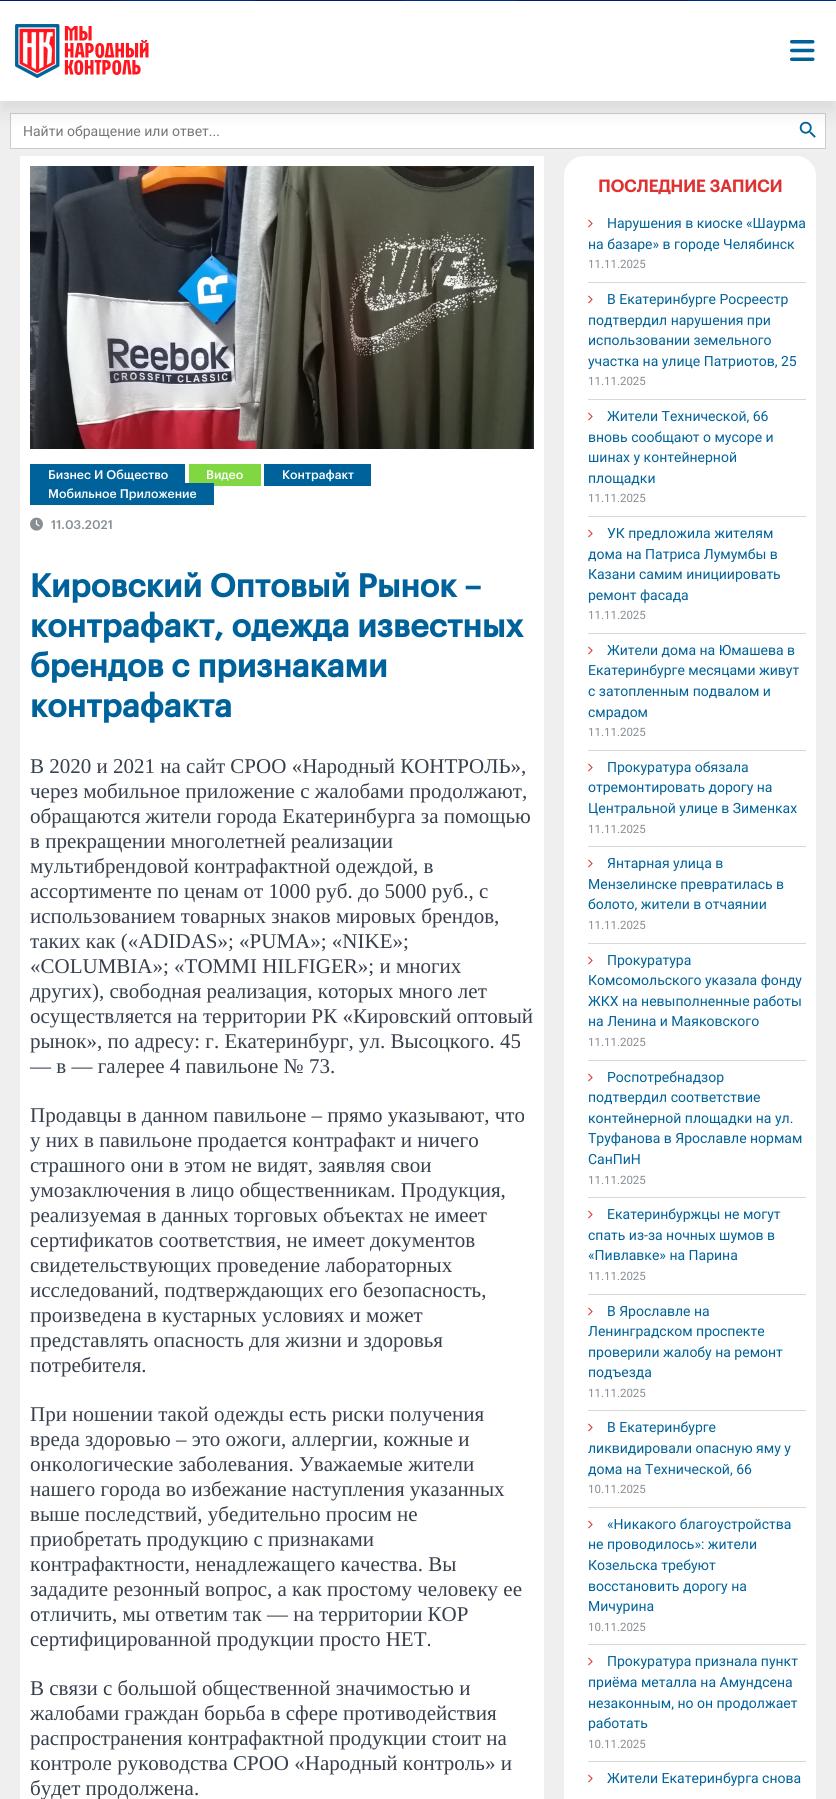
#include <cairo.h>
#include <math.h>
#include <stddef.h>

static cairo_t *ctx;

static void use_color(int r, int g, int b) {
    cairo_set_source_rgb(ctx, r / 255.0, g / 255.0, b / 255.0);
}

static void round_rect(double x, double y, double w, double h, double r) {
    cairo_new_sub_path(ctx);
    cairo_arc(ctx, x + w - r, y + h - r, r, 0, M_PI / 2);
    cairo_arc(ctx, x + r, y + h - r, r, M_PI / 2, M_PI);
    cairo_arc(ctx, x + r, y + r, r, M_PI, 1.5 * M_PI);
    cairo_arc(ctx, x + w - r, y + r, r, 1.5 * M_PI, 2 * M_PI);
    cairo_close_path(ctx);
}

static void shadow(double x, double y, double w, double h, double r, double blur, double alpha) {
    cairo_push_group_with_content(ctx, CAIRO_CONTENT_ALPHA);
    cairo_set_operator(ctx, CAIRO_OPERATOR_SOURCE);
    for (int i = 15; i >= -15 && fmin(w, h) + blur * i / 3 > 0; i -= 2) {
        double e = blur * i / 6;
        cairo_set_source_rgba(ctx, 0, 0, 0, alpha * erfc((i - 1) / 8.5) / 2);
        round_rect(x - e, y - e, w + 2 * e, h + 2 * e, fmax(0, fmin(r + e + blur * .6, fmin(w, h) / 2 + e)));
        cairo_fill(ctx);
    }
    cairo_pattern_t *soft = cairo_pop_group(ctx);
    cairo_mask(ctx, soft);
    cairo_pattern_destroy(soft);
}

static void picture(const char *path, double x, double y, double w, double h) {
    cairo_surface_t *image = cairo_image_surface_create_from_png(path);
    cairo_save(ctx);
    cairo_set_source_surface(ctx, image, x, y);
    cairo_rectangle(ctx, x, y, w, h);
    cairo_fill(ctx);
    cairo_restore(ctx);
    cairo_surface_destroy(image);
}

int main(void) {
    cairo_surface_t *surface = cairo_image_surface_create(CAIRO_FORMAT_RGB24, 836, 1799);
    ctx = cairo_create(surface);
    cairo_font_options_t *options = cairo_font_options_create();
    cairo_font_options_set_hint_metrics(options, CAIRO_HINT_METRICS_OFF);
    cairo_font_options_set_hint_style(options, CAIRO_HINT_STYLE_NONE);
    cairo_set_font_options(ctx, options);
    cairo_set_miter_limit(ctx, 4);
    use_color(255, 255, 255);
    cairo_paint(ctx);
    picture("img1.png", 0, 0, 836, 1);
    use_color(239, 239, 239);
    cairo_rectangle(ctx, 0, 101, 836, 1698);
    cairo_fill(ctx);
    use_color(255, 255, 255);
    cairo_rectangle(ctx, 10.5, 113.5, 815, 35);
    cairo_fill_preserve(ctx);
    use_color(204, 204, 204);
    cairo_set_line_width(ctx, 1);
    cairo_stroke(ctx);
    cairo_select_font_face(ctx, "Roboto", CAIRO_FONT_SLANT_NORMAL, CAIRO_FONT_WEIGHT_NORMAL);
    cairo_set_font_size(ctx, 14);
    use_color(119, 119, 119);
    cairo_move_to(ctx, 23, 136);
    cairo_show_text(ctx, "Найти обращение или ответ...");
    picture("img2.png", 799, 121, 17, 17);
    use_color(20, 18, 35);
    shadow(0, 11, 836, 100, 0, 10, 0.1);
    use_color(255, 255, 255);
    cairo_rectangle(ctx, 0, 1, 836, 100);
    cairo_fill(ctx);
    picture("img3.png", 15, 24, 134, 54);
    picture("img4.png", 790, 40, 25, 21);
    cairo_rectangle(ctx, 20, 156, 524, 1643);
    cairo_fill(ctx);
    picture("img5.png", 30, 166, 504, 283);
    use_color(0, 98, 154);
    cairo_rectangle(ctx, 30, 464, 155, 19);
    cairo_fill(ctx);
    cairo_select_font_face(ctx, "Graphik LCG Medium", CAIRO_FONT_SLANT_NORMAL, CAIRO_FONT_WEIGHT_NORMAL);
    cairo_set_font_size(ctx, 12.25);
    use_color(255, 255, 255);
    cairo_move_to(ctx, 48, 479);
    cairo_show_text(ctx, "Бизнес И Общество");
    use_color(129, 215, 66);
    cairo_rectangle(ctx, 189, 464, 72, 22);
    cairo_fill(ctx);
    use_color(255, 255, 255);
    cairo_move_to(ctx, 206, 479);
    cairo_show_text(ctx, "Видео");
    use_color(0, 98, 154);
    cairo_rectangle(ctx, 264, 464, 107, 22);
    cairo_fill(ctx);
    use_color(255, 255, 255);
    cairo_move_to(ctx, 282, 479);
    cairo_show_text(ctx, "Контрафакт");
    use_color(0, 98, 154);
    cairo_rectangle(ctx, 30, 483, 184, 22);
    cairo_fill(ctx);
    use_color(255, 255, 255);
    cairo_move_to(ctx, 48, 498);
    cairo_show_text(ctx, "Мобильное Приложение");
    picture("img6.png", 30, 517, 13, 14);
    use_color(135, 142, 148);
    cairo_move_to(ctx, 51, 529);
    cairo_show_text(ctx, "11.03.2021");
    cairo_select_font_face(ctx, "Graphik LCG", CAIRO_FONT_SLANT_NORMAL, CAIRO_FONT_WEIGHT_BOLD);
    cairo_set_font_size(ctx, 32);
    use_color(0, 98, 154);
    cairo_move_to(ctx, 30, 597);
    cairo_show_text(ctx, "Кировский Оптовый Рынок –");
    cairo_move_to(ctx, 30, 637);
    cairo_show_text(ctx, "контрафакт, одежда известных");
    cairo_move_to(ctx, 30, 677);
    cairo_show_text(ctx, "брендов с признаками");
    cairo_move_to(ctx, 30, 717);
    cairo_show_text(ctx, "контрафакта");
    cairo_select_font_face(ctx, "Liberation Serif", CAIRO_FONT_SLANT_NORMAL, CAIRO_FONT_WEIGHT_NORMAL);
    cairo_set_font_size(ctx, 21);
    use_color(55, 64, 77);
    cairo_move_to(ctx, 30, 773);
    cairo_show_text(ctx, "В 2020 и 2021 на сайт СРОО «Народный КОНТРОЛЬ»,");
    cairo_move_to(ctx, 30, 798);
    cairo_show_text(ctx, "через мобильное приложение с жалобами продолжают,");
    cairo_move_to(ctx, 30, 823);
    cairo_show_text(ctx, "обращаются жители города Екатеринбурга за помощью");
    cairo_move_to(ctx, 30, 848);
    cairo_show_text(ctx, "в прекращении многолетней реализации");
    cairo_move_to(ctx, 30, 873);
    cairo_show_text(ctx, "мультибрендовой контрафактной одеждой, в");
    cairo_move_to(ctx, 30, 898);
    cairo_show_text(ctx, "ассортименте по ценам от 1000 руб. до 5000 руб., с");
    cairo_move_to(ctx, 30, 923);
    cairo_show_text(ctx, "использованием товарных знаков мировых брендов,");
    cairo_move_to(ctx, 30, 948);
    cairo_show_text(ctx, "таких как («ADIDAS»; «PUMA»; «NIKE»;");
    cairo_move_to(ctx, 30, 973);
    cairo_show_text(ctx, "«COLUMBIA»; «TOMMI HILFIGER»; и многих");
    cairo_move_to(ctx, 30, 998);
    cairo_show_text(ctx, "других), свободная реализация, которых много лет");
    cairo_move_to(ctx, 30, 1023);
    cairo_show_text(ctx, "осуществляется на территории РК «Кировский оптовый");
    cairo_move_to(ctx, 30, 1048);
    cairo_show_text(ctx, "рынок», по адресу: г. Екатеринбург, ул. Высоцкого. 45");
    cairo_move_to(ctx, 30, 1073);
    cairo_show_text(ctx, "— в — галерее 4 павильоне № 73.");
    cairo_move_to(ctx, 30, 1122);
    cairo_show_text(ctx, "Продавцы в данном павильоне – прямо указывают, что");
    cairo_move_to(ctx, 30, 1147);
    cairo_show_text(ctx, "у них в павильоне продается контрафакт и ничего");
    cairo_move_to(ctx, 30, 1172);
    cairo_show_text(ctx, "страшного они в этом не видят, заявляя свои");
    cairo_move_to(ctx, 30, 1197);
    cairo_show_text(ctx, "умозаключения в лицо общественникам. Продукция,");
    cairo_move_to(ctx, 30, 1222);
    cairo_show_text(ctx, "реализуемая в данных торговых объектах не имеет");
    cairo_move_to(ctx, 30, 1247);
    cairo_show_text(ctx, "сертификатов соответствия, не имеет документов");
    cairo_move_to(ctx, 30, 1272);
    cairo_show_text(ctx, "свидетельствующих проведение лабораторных");
    cairo_move_to(ctx, 30, 1297);
    cairo_show_text(ctx, "исследований, подтверждающих его безопасность,");
    cairo_move_to(ctx, 30, 1322);
    cairo_show_text(ctx, "произведена в кустарных условиях и может");
    cairo_move_to(ctx, 30, 1347);
    cairo_show_text(ctx, "представлять опасность для жизни и здоровья");
    cairo_move_to(ctx, 30, 1372);
    cairo_show_text(ctx, "потребителя.");
    cairo_move_to(ctx, 30, 1421);
    cairo_show_text(ctx, "При ношении такой одежды есть риски получения");
    cairo_move_to(ctx, 30, 1446);
    cairo_show_text(ctx, "вреда здоровью – это ожоги, аллергии, кожные и");
    cairo_move_to(ctx, 30, 1471);
    cairo_show_text(ctx, "онкологические заболевания. Уважаемые жители");
    cairo_move_to(ctx, 30, 1496);
    cairo_show_text(ctx, "нашего города во избежание наступления указанных");
    cairo_move_to(ctx, 30, 1521);
    cairo_show_text(ctx, "выше последствий, убедительно просим не");
    cairo_move_to(ctx, 30, 1546);
    cairo_show_text(ctx, "приобретать продукцию с признаками");
    cairo_move_to(ctx, 30, 1571);
    cairo_show_text(ctx, "контрафактности, ненадлежащего качества. Вы");
    cairo_move_to(ctx, 30, 1596);
    cairo_show_text(ctx, "зададите резонный вопрос, а как простому человеку ее");
    cairo_move_to(ctx, 30, 1621);
    cairo_show_text(ctx, "отличить, мы ответим так — на территории КОР");
    cairo_move_to(ctx, 30, 1646);
    cairo_show_text(ctx, "сертифицированной продукции просто НЕТ.");
    cairo_move_to(ctx, 30, 1695);
    cairo_show_text(ctx, "В связи с большой общественной значимостью и");
    cairo_move_to(ctx, 30, 1720);
    cairo_show_text(ctx, "жалобами граждан борьба в сфере противодействия");
    cairo_move_to(ctx, 30, 1745);
    cairo_show_text(ctx, "распространения контрафактной продукции стоит на");
    cairo_move_to(ctx, 30, 1770);
    cairo_show_text(ctx, "контроле руководства СРОО «Народный контроль» и");
    cairo_move_to(ctx, 30, 1795);
    cairo_show_text(ctx, "будет продолжена.");
    use_color(255, 255, 255);
    round_rect(564, 156, 252, 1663, 20);
    cairo_fill(ctx);
    cairo_select_font_face(ctx, "Graphik LCG", CAIRO_FONT_SLANT_NORMAL, CAIRO_FONT_WEIGHT_BOLD);
    cairo_set_font_size(ctx, 16.75);
    use_color(221, 51, 51);
    cairo_move_to(ctx, 598, 192);
    cairo_show_text(ctx, "ПОСЛЕДНИЕ ЗАПИСИ");
    use_color(215, 215, 215);
    cairo_rectangle(ctx, 588, 282, 218, 1);
    cairo_fill(ctx);
    picture("img7.png", 588, 219, 5, 9);
    cairo_select_font_face(ctx, "Roboto", CAIRO_FONT_SLANT_NORMAL, CAIRO_FONT_WEIGHT_NORMAL);
    cairo_set_font_size(ctx, 14);
    use_color(0, 98, 154);
    cairo_move_to(ctx, 607, 228);
    cairo_show_text(ctx, "Нарушения в киоске «Шаурма");
    cairo_move_to(ctx, 588, 249);
    cairo_show_text(ctx, "на базаре» в городе Челябинск");
    cairo_set_font_size(ctx, 11.5);
    use_color(135, 142, 148);
    cairo_move_to(ctx, 588, 268);
    cairo_show_text(ctx, "11.11.2025");
    use_color(215, 215, 215);
    cairo_rectangle(ctx, 588, 399, 218, 1);
    cairo_fill(ctx);
    picture("img7.png", 588, 295, 5, 9);
    cairo_set_font_size(ctx, 14);
    use_color(0, 98, 154);
    cairo_move_to(ctx, 607, 304);
    cairo_show_text(ctx, "В Екатеринбурге Росреестр");
    cairo_move_to(ctx, 588, 325);
    cairo_show_text(ctx, "подтвердил нарушения при");
    cairo_move_to(ctx, 588, 345);
    cairo_show_text(ctx, "использовании земельного");
    cairo_move_to(ctx, 588, 366);
    cairo_show_text(ctx, "участка на улице Патриотов, 25");
    cairo_set_font_size(ctx, 11.5);
    use_color(135, 142, 148);
    cairo_move_to(ctx, 588, 385);
    cairo_show_text(ctx, "11.11.2025");
    use_color(215, 215, 215);
    cairo_rectangle(ctx, 588, 516, 218, 1);
    cairo_fill(ctx);
    picture("img7.png", 588, 412, 5, 9);
    cairo_set_font_size(ctx, 14);
    use_color(0, 98, 154);
    cairo_move_to(ctx, 607, 421);
    cairo_show_text(ctx, "Жители Технической, 66");
    cairo_move_to(ctx, 588, 442);
    cairo_show_text(ctx, "вновь сообщают о мусоре и");
    cairo_move_to(ctx, 588, 462);
    cairo_show_text(ctx, "шинах у контейнерной");
    cairo_move_to(ctx, 588, 483);
    cairo_show_text(ctx, "площадки");
    cairo_set_font_size(ctx, 11.5);
    use_color(135, 142, 148);
    cairo_move_to(ctx, 588, 502);
    cairo_show_text(ctx, "11.11.2025");
    use_color(215, 215, 215);
    cairo_rectangle(ctx, 588, 633, 218, 1);
    cairo_fill(ctx);
    picture("img7.png", 588, 529, 5, 9);
    cairo_set_font_size(ctx, 14);
    use_color(0, 98, 154);
    cairo_move_to(ctx, 607, 538);
    cairo_show_text(ctx, "УК предложила жителям");
    cairo_move_to(ctx, 588, 559);
    cairo_show_text(ctx, "дома на Патриса Лумумбы в");
    cairo_move_to(ctx, 588, 579);
    cairo_show_text(ctx, "Казани самим инициировать");
    cairo_move_to(ctx, 588, 600);
    cairo_show_text(ctx, "ремонт фасада");
    cairo_set_font_size(ctx, 11.5);
    use_color(135, 142, 148);
    cairo_move_to(ctx, 588, 619);
    cairo_show_text(ctx, "11.11.2025");
    use_color(215, 215, 215);
    cairo_rectangle(ctx, 588, 750, 218, 1);
    cairo_fill(ctx);
    picture("img7.png", 588, 646, 5, 9);
    cairo_set_font_size(ctx, 14);
    use_color(0, 98, 154);
    cairo_move_to(ctx, 607, 655);
    cairo_show_text(ctx, "Жители дома на Юмашева в");
    cairo_move_to(ctx, 588, 675);
    cairo_show_text(ctx, "Екатеринбурге месяцами живут");
    cairo_move_to(ctx, 588, 696);
    cairo_show_text(ctx, "с затопленным подвалом и");
    cairo_move_to(ctx, 588, 717);
    cairo_show_text(ctx, "смрадом");
    cairo_set_font_size(ctx, 11.5);
    use_color(135, 142, 148);
    cairo_move_to(ctx, 588, 736);
    cairo_show_text(ctx, "11.11.2025");
    use_color(215, 215, 215);
    cairo_rectangle(ctx, 588, 846, 218, 1);
    cairo_fill(ctx);
    picture("img7.png", 588, 763, 5, 9);
    cairo_set_font_size(ctx, 14);
    use_color(0, 98, 154);
    cairo_move_to(ctx, 607, 772);
    cairo_show_text(ctx, "Прокуратура обязала");
    cairo_move_to(ctx, 588, 792);
    cairo_show_text(ctx, "отремонтировать дорогу на");
    cairo_move_to(ctx, 588, 813);
    cairo_show_text(ctx, "Центральной улице в Зименках");
    cairo_set_font_size(ctx, 11.5);
    use_color(135, 142, 148);
    cairo_move_to(ctx, 588, 833);
    cairo_show_text(ctx, "11.11.2025");
    use_color(215, 215, 215);
    cairo_rectangle(ctx, 588, 943, 218, 1);
    cairo_fill(ctx);
    picture("img7.png", 588, 859, 5, 9);
    cairo_set_font_size(ctx, 14);
    use_color(0, 98, 154);
    cairo_move_to(ctx, 607, 868);
    cairo_show_text(ctx, "Янтарная улица в");
    cairo_move_to(ctx, 588, 889);
    cairo_show_text(ctx, "Мензелинске превратилась в");
    cairo_move_to(ctx, 588, 909);
    cairo_show_text(ctx, "болото, жители в отчаянии");
    cairo_set_font_size(ctx, 11.5);
    use_color(135, 142, 148);
    cairo_move_to(ctx, 588, 929);
    cairo_show_text(ctx, "11.11.2025");
    use_color(215, 215, 215);
    cairo_rectangle(ctx, 588, 1060, 218, 1);
    cairo_fill(ctx);
    picture("img7.png", 588, 956, 5, 9);
    cairo_set_font_size(ctx, 14);
    use_color(0, 98, 154);
    cairo_move_to(ctx, 607, 965);
    cairo_show_text(ctx, "Прокуратура");
    cairo_move_to(ctx, 588, 985);
    cairo_show_text(ctx, "Комсомольского указала фонду");
    cairo_move_to(ctx, 588, 1006);
    cairo_show_text(ctx, "ЖКХ на невыполненные работы");
    cairo_move_to(ctx, 588, 1026);
    cairo_show_text(ctx, "на Ленина и Маяковского");
    cairo_set_font_size(ctx, 11.5);
    use_color(135, 142, 148);
    cairo_move_to(ctx, 588, 1046);
    cairo_show_text(ctx, "11.11.2025");
    use_color(215, 215, 215);
    cairo_rectangle(ctx, 588, 1197, 218, 1);
    cairo_fill(ctx);
    picture("img7.png", 588, 1073, 5, 9);
    cairo_set_font_size(ctx, 14);
    use_color(0, 98, 154);
    cairo_move_to(ctx, 607, 1082);
    cairo_show_text(ctx, "Роспотребнадзор");
    cairo_move_to(ctx, 588, 1102);
    cairo_show_text(ctx, "подтвердил соответствие");
    cairo_move_to(ctx, 588, 1123);
    cairo_show_text(ctx, "контейнерной площадки на ул.");
    cairo_move_to(ctx, 588, 1143);
    cairo_show_text(ctx, "Труфанова в Ярославле нормам");
    cairo_move_to(ctx, 588, 1164);
    cairo_show_text(ctx, "СанПиН");
    cairo_set_font_size(ctx, 11.5);
    use_color(135, 142, 148);
    cairo_move_to(ctx, 588, 1184);
    cairo_show_text(ctx, "11.11.2025");
    use_color(215, 215, 215);
    cairo_rectangle(ctx, 588, 1294, 218, 1);
    cairo_fill(ctx);
    picture("img7.png", 588, 1210, 5, 9);
    cairo_set_font_size(ctx, 14);
    use_color(0, 98, 154);
    cairo_move_to(ctx, 607, 1219);
    cairo_show_text(ctx, "Екатеринбуржцы не могут");
    cairo_move_to(ctx, 588, 1240);
    cairo_show_text(ctx, "спать из-за ночных шумов в");
    cairo_move_to(ctx, 588, 1260);
    cairo_show_text(ctx, "«Пивлавке» на Парина");
    cairo_set_font_size(ctx, 11.5);
    use_color(135, 142, 148);
    cairo_move_to(ctx, 588, 1280);
    cairo_show_text(ctx, "11.11.2025");
    use_color(215, 215, 215);
    cairo_rectangle(ctx, 588, 1410, 218, 1);
    cairo_fill(ctx);
    picture("img7.png", 588, 1307, 5, 9);
    cairo_set_font_size(ctx, 14);
    use_color(0, 98, 154);
    cairo_move_to(ctx, 607, 1316);
    cairo_show_text(ctx, "В Ярославле на");
    cairo_move_to(ctx, 588, 1336);
    cairo_show_text(ctx, "Ленинградском проспекте");
    cairo_move_to(ctx, 588, 1357);
    cairo_show_text(ctx, "проверили жалобу на ремонт");
    cairo_move_to(ctx, 588, 1377);
    cairo_show_text(ctx, "подъезда");
    cairo_set_font_size(ctx, 11.5);
    use_color(135, 142, 148);
    cairo_move_to(ctx, 588, 1397);
    cairo_show_text(ctx, "11.11.2025");
    use_color(215, 215, 215);
    cairo_rectangle(ctx, 588, 1507, 218, 1);
    cairo_fill(ctx);
    picture("img7.png", 588, 1423, 5, 9);
    cairo_set_font_size(ctx, 14);
    use_color(0, 98, 154);
    cairo_move_to(ctx, 607, 1432);
    cairo_show_text(ctx, "В Екатеринбурге");
    cairo_move_to(ctx, 588, 1453);
    cairo_show_text(ctx, "ликвидировали опасную яму у");
    cairo_move_to(ctx, 588, 1474);
    cairo_show_text(ctx, "дома на Технической, 66");
    cairo_set_font_size(ctx, 11.5);
    use_color(135, 142, 148);
    cairo_move_to(ctx, 588, 1493);
    cairo_show_text(ctx, "10.11.2025");
    use_color(215, 215, 215);
    cairo_rectangle(ctx, 588, 1644, 218, 1);
    cairo_fill(ctx);
    picture("img7.png", 588, 1520, 5, 9);
    cairo_set_font_size(ctx, 14);
    use_color(0, 98, 154);
    cairo_move_to(ctx, 607, 1529);
    cairo_show_text(ctx, "«Никакого благоустройства");
    cairo_move_to(ctx, 588, 1549);
    cairo_show_text(ctx, "не проводилось»: жители");
    cairo_move_to(ctx, 588, 1570);
    cairo_show_text(ctx, "Козельска требуют");
    cairo_move_to(ctx, 588, 1591);
    cairo_show_text(ctx, "восстановить дорогу на");
    cairo_move_to(ctx, 588, 1611);
    cairo_show_text(ctx, "Мичурина");
    cairo_set_font_size(ctx, 11.5);
    use_color(135, 142, 148);
    cairo_move_to(ctx, 588, 1631);
    cairo_show_text(ctx, "10.11.2025");
    use_color(215, 215, 215);
    cairo_rectangle(ctx, 588, 1761, 218, 1);
    cairo_fill(ctx);
    picture("img7.png", 588, 1657, 5, 9);
    cairo_set_font_size(ctx, 14);
    use_color(0, 98, 154);
    cairo_move_to(ctx, 607, 1666);
    cairo_show_text(ctx, "Прокуратура признала пункт");
    cairo_move_to(ctx, 588, 1687);
    cairo_show_text(ctx, "приёма металла на Амундсена");
    cairo_move_to(ctx, 588, 1708);
    cairo_show_text(ctx, "незаконным, но он продолжает");
    cairo_move_to(ctx, 588, 1728);
    cairo_show_text(ctx, "работать");
    cairo_set_font_size(ctx, 11.5);
    use_color(135, 142, 148);
    cairo_move_to(ctx, 588, 1748);
    cairo_show_text(ctx, "10.11.2025");
    picture("img7.png", 588, 1774, 5, 9);
    cairo_set_font_size(ctx, 14);
    use_color(0, 98, 154);
    cairo_move_to(ctx, 607, 1783);
    cairo_show_text(ctx, "Жители Екатеринбурга снова");
    cairo_surface_write_to_png(surface, "result.png");
    cairo_font_options_destroy(options);
    cairo_destroy(ctx);
    cairo_surface_destroy(surface);
    return 0;
}
